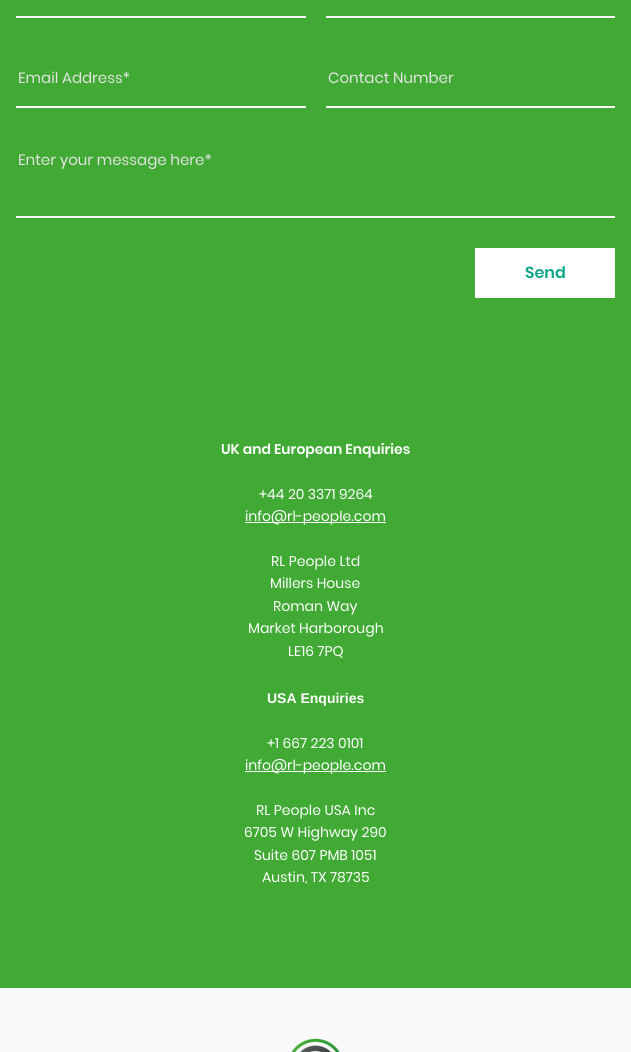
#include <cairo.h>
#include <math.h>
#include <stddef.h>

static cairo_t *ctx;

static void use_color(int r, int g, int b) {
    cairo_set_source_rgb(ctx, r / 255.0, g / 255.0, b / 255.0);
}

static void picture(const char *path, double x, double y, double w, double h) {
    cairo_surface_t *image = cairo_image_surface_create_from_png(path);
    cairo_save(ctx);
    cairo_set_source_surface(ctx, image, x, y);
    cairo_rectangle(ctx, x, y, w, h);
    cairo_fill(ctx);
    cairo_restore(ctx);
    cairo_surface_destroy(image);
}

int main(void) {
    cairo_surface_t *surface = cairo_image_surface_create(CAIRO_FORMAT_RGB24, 631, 1052);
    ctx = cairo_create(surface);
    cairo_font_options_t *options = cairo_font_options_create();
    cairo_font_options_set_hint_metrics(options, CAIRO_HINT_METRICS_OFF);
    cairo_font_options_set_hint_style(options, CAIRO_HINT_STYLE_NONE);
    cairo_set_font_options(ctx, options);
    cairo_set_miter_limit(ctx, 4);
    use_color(65, 170, 52);
    cairo_paint(ctx);
    use_color(255, 255, 255);
    cairo_rectangle(ctx, 16, 16, 290, 2);
    cairo_fill(ctx);
    cairo_rectangle(ctx, 326, 16, 289, 2);
    cairo_fill(ctx);
    cairo_rectangle(ctx, 16, 106, 290, 2);
    cairo_fill(ctx);
    cairo_select_font_face(ctx, "Poppins", CAIRO_FONT_SLANT_NORMAL, CAIRO_FONT_WEIGHT_NORMAL);
    cairo_set_font_size(ctx, 15);
    use_color(227, 227, 227);
    cairo_move_to(ctx, 18, 83);
    cairo_show_text(ctx, "Email Address*");
    use_color(255, 255, 255);
    cairo_rectangle(ctx, 326, 106, 289, 2);
    cairo_fill(ctx);
    use_color(227, 227, 227);
    cairo_move_to(ctx, 328, 83);
    cairo_show_text(ctx, "Contact Number");
    use_color(255, 255, 255);
    cairo_rectangle(ctx, 16, 216, 599, 2);
    cairo_fill(ctx);
    use_color(227, 227, 227);
    cairo_move_to(ctx, 18, 165);
    cairo_show_text(ctx, "Enter your message here*");
    use_color(255, 255, 255);
    cairo_rectangle(ctx, 475, 248, 140, 50);
    cairo_fill(ctx);
    cairo_select_font_face(ctx, "Poppins SemiBold", CAIRO_FONT_SLANT_NORMAL, CAIRO_FONT_WEIGHT_NORMAL);
    cairo_set_font_size(ctx, 16);
    use_color(12, 167, 137);
    cairo_move_to(ctx, 525, 278);
    cairo_show_text(ctx, "Send");
    cairo_set_font_size(ctx, 14);
    use_color(255, 255, 255);
    cairo_move_to(ctx, 221, 454);
    cairo_show_text(ctx, "UK and European Enquiries");
    cairo_select_font_face(ctx, "Poppins", CAIRO_FONT_SLANT_NORMAL, CAIRO_FONT_WEIGHT_NORMAL);
    cairo_move_to(ctx, 259, 499);
    cairo_show_text(ctx, "+44 20 3371 9264");
    cairo_rectangle(ctx, 245, 522, 141, 1);
    cairo_fill(ctx);
    cairo_move_to(ctx, 245, 521);
    cairo_show_text(ctx, "info@rl-people.com");
    cairo_move_to(ctx, 271, 566);
    cairo_show_text(ctx, "RL People Ltd");
    cairo_move_to(ctx, 270, 588);
    cairo_show_text(ctx, "Millers House");
    cairo_move_to(ctx, 273, 611);
    cairo_show_text(ctx, "Roman Way");
    cairo_move_to(ctx, 248, 633);
    cairo_show_text(ctx, "Market Harborough");
    cairo_move_to(ctx, 288, 656);
    cairo_show_text(ctx, "LE16 7PQ");
    cairo_select_font_face(ctx, "Liberation Sans", CAIRO_FONT_SLANT_NORMAL, CAIRO_FONT_WEIGHT_BOLD);
    cairo_move_to(ctx, 267, 703);
    cairo_show_text(ctx, "USA Enquiries");
    cairo_select_font_face(ctx, "Poppins", CAIRO_FONT_SLANT_NORMAL, CAIRO_FONT_WEIGHT_NORMAL);
    cairo_move_to(ctx, 267, 748);
    cairo_show_text(ctx, "+1 667 223 0101");
    cairo_rectangle(ctx, 245, 771, 141, 1);
    cairo_fill(ctx);
    cairo_move_to(ctx, 245, 770);
    cairo_show_text(ctx, "info@rl-people.com");
    cairo_move_to(ctx, 256, 815);
    cairo_show_text(ctx, "RL People USA Inc");
    cairo_move_to(ctx, 244, 837);
    cairo_show_text(ctx, "6705 W Highway 290");
    cairo_move_to(ctx, 254, 860);
    cairo_show_text(ctx, "Suite 607 PMB 1051");
    cairo_move_to(ctx, 262, 882);
    cairo_show_text(ctx, "Austin, TX 78735");
    use_color(250, 250, 250);
    cairo_rectangle(ctx, 0, 988, 631, 64);
    cairo_fill(ctx);
    picture("img1.png", 291, 1038, 49, 14);
    cairo_surface_write_to_png(surface, "result.png");
    cairo_font_options_destroy(options);
    cairo_destroy(ctx);
    cairo_surface_destroy(surface);
    return 0;
}
